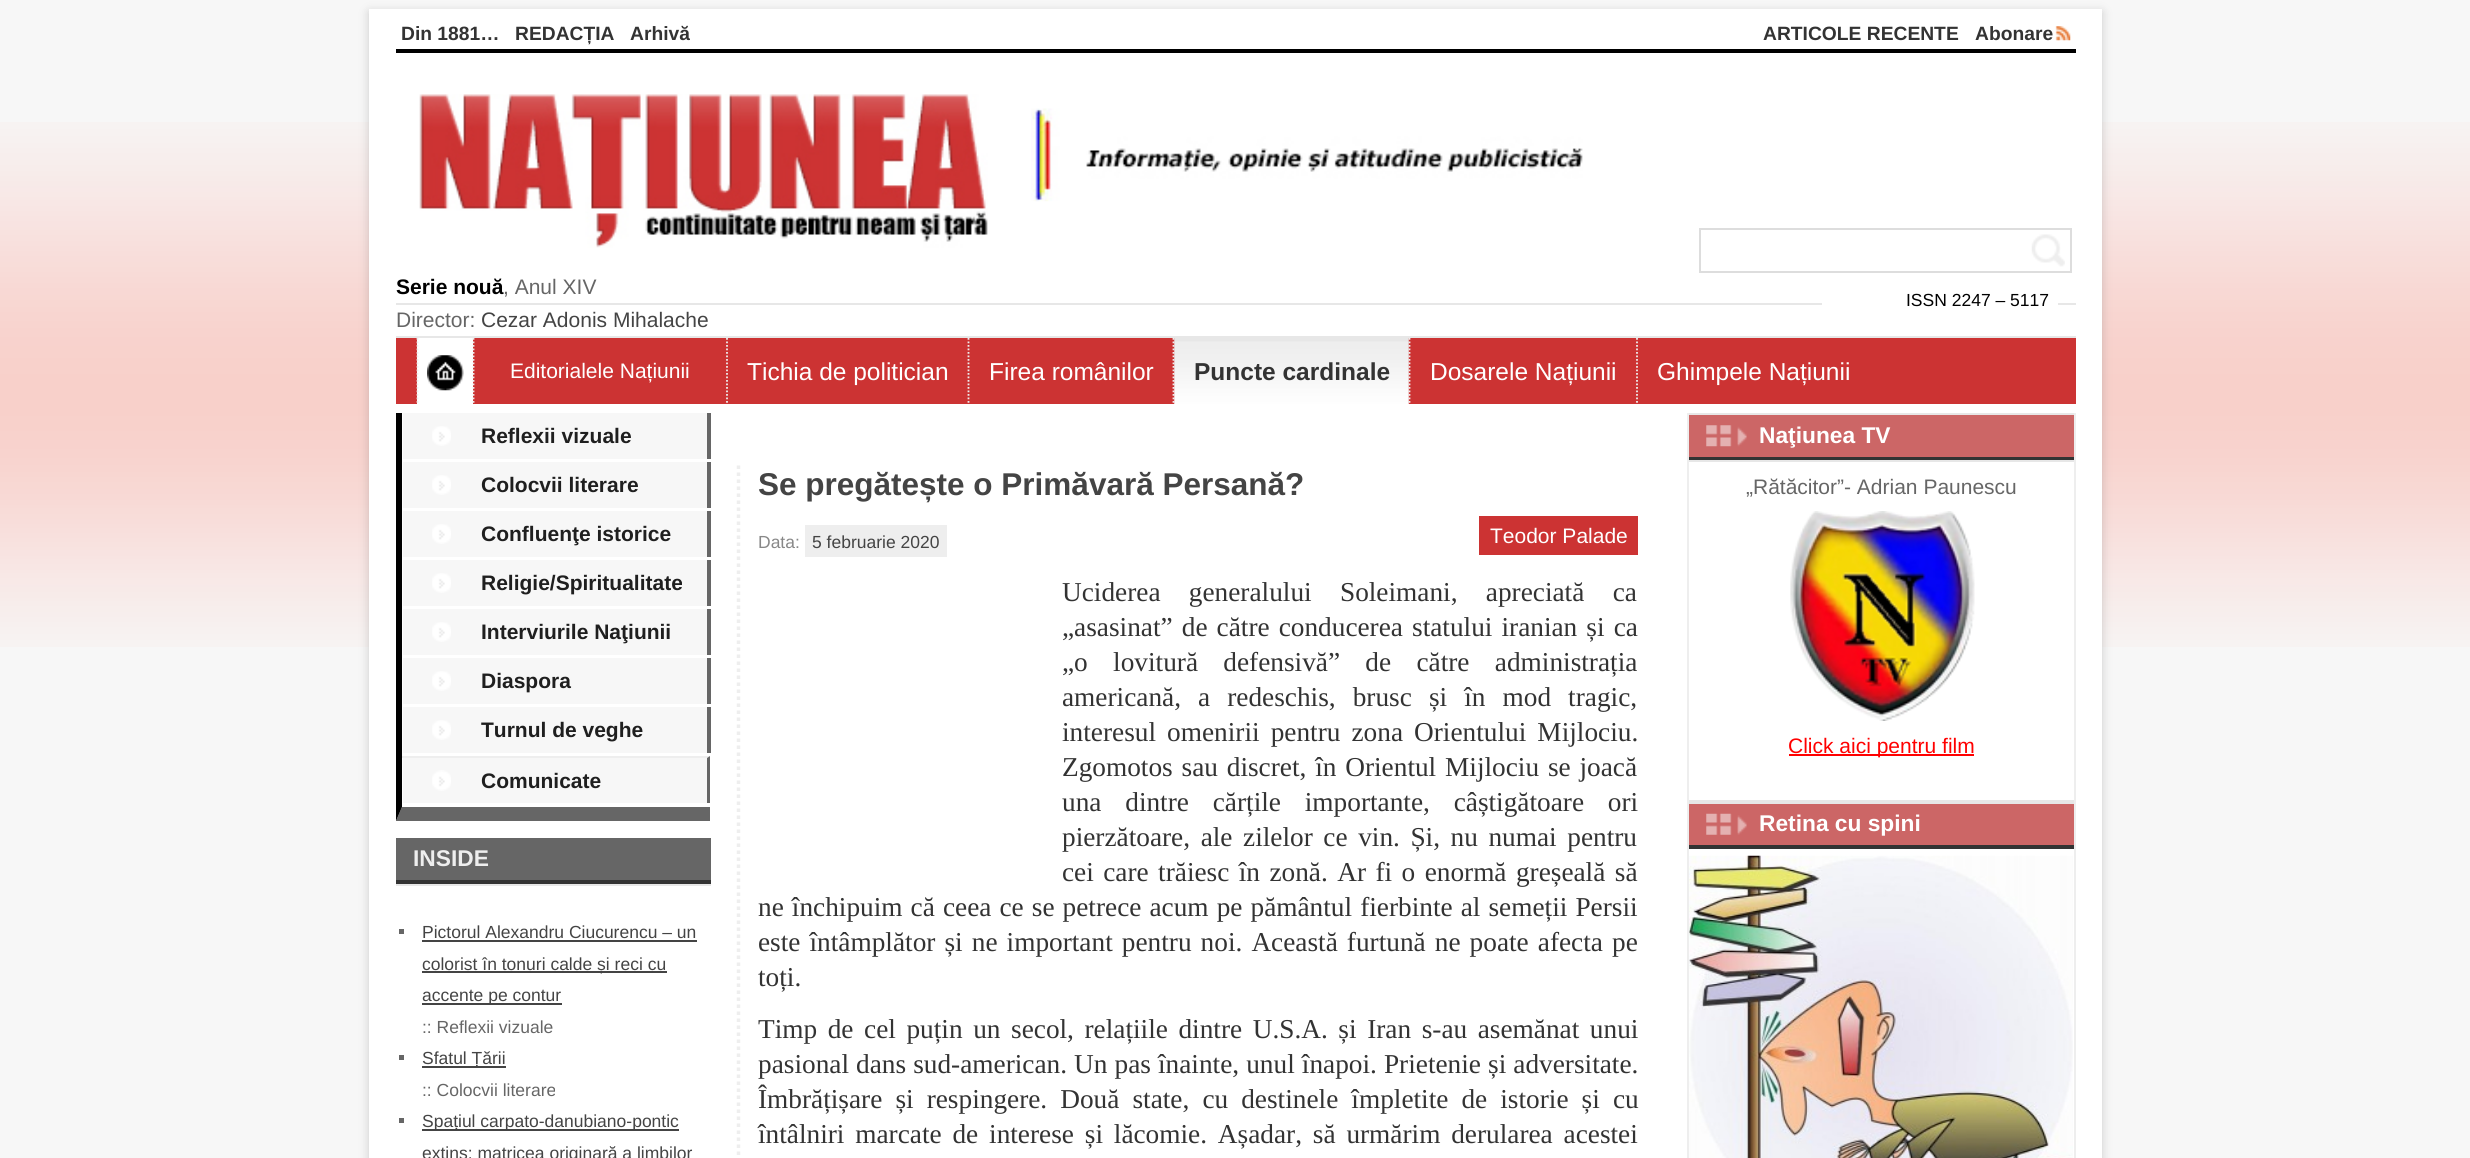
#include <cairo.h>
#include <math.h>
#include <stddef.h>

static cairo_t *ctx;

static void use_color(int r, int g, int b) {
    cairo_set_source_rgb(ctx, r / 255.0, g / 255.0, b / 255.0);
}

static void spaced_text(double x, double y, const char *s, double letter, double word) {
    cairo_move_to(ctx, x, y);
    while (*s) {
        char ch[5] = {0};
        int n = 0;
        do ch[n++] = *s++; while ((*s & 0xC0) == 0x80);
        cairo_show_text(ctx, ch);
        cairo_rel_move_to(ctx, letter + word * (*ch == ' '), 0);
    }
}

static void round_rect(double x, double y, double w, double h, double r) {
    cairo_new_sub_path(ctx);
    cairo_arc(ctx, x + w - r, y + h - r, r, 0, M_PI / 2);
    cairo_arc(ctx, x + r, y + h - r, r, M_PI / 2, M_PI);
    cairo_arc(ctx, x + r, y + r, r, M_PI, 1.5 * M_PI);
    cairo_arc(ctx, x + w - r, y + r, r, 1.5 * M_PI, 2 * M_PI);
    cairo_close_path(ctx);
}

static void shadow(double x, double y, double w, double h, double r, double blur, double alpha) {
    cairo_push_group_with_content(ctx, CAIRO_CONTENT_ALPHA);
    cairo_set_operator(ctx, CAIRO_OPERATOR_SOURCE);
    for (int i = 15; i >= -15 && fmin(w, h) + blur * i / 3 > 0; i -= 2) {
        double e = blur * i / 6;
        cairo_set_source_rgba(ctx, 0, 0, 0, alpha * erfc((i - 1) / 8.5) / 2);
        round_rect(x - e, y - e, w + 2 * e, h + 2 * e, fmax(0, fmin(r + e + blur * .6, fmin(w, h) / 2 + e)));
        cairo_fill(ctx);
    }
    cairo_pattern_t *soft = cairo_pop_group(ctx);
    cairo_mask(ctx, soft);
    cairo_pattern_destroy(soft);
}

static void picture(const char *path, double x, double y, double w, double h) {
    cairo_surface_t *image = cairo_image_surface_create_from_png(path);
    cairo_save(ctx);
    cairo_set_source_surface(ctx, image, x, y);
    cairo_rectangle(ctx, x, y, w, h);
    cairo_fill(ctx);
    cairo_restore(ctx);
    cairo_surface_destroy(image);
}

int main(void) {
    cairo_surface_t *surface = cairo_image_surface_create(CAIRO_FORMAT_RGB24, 2470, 1158);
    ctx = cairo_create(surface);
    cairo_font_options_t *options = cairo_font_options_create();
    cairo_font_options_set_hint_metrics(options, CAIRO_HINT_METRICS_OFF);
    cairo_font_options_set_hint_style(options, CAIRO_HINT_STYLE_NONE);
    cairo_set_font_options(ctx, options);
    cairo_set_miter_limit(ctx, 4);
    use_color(247, 247, 247);
    cairo_paint(ctx);
    picture("img1.png", 0, 122, 2470, 525);
    use_color(100, 100, 100);
    shadow(369, 12, 1733, 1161, 0, 5, 0.3);
    use_color(255, 255, 255);
    cairo_rectangle(ctx, 369, 9, 1733, 1149);
    cairo_fill(ctx);
    cairo_select_font_face(ctx, "Liberation Sans", CAIRO_FONT_SLANT_NORMAL, CAIRO_FONT_WEIGHT_BOLD);
    cairo_set_font_size(ctx, 19.25);
    use_color(51, 51, 51);
    cairo_move_to(ctx, 401, 40);
    cairo_show_text(ctx, "Din 1881…");
    cairo_move_to(ctx, 515, 40);
    cairo_show_text(ctx, "REDACȚIA");
    cairo_move_to(ctx, 630, 40);
    cairo_show_text(ctx, "Arhivă");
    cairo_move_to(ctx, 1763, 40);
    cairo_show_text(ctx, "ARTICOLE RECENTE");
    cairo_move_to(ctx, 1975, 40);
    cairo_show_text(ctx, "Abonare");
    picture("img2.png", 2055, 26, 16, 15);
    use_color(0, 0, 0);
    cairo_rectangle(ctx, 396, 49, 1680, 4);
    cairo_fill(ctx);
    picture("img3.png", 419, 94, 569, 154);
    picture("img4.png", 1031, 108, 552, 94);
    cairo_set_font_size(ctx, 21);
    cairo_move_to(ctx, 396, 294);
    cairo_show_text(ctx, "Serie nouă");
    cairo_select_font_face(ctx, "Liberation Sans", CAIRO_FONT_SLANT_NORMAL, CAIRO_FONT_WEIGHT_NORMAL);
    use_color(102, 102, 102);
    cairo_move_to(ctx, 503, 294);
    cairo_show_text(ctx, ", Anul XIV");
    picture("img5.png", 2031, 234, 34, 33);
    cairo_rectangle(ctx, 1700, 229, 371, 43);
    use_color(221, 221, 221);
    cairo_stroke(ctx);
    use_color(231, 231, 231);
    cairo_rectangle(ctx, 396, 303, 1680, 2);
    cairo_fill(ctx);
    use_color(255, 255, 255);
    cairo_rectangle(ctx, 1822, 303, 236, 2);
    cairo_fill(ctx);
    cairo_set_font_size(ctx, 17.5);
    use_color(0, 0, 0);
    cairo_move_to(ctx, 1906, 306);
    cairo_show_text(ctx, "ISSN 2247 – 5117");
    cairo_set_font_size(ctx, 21);
    use_color(102, 102, 102);
    cairo_move_to(ctx, 396, 327);
    cairo_show_text(ctx, "Director:");
    use_color(68, 68, 68);
    cairo_move_to(ctx, 481, 327);
    cairo_show_text(ctx, "Cezar Adonis Mihalache");
    use_color(231, 231, 231);
    cairo_rectangle(ctx, 396, 336, 1680, 2);
    cairo_fill(ctx);
    use_color(204, 51, 51);
    cairo_rectangle(ctx, 396, 338, 1680, 66);
    cairo_fill(ctx);
    use_color(255, 255, 255);
    cairo_rectangle(ctx, 417, 338, 56, 66);
    cairo_fill(ctx);
    cairo_new_path(ctx);
    cairo_move_to(ctx, 417.5, 338);
    cairo_line_to(ctx, 417.5, 404);
    use_color(238, 238, 238);
    cairo_set_line_width(ctx, 1.8);
    cairo_set_dash(ctx, (double[]){1.75, 1.75}, 2, 0);
    cairo_stroke(ctx);
    picture("img6.png", 427, 355, 37, 36);
    cairo_new_path(ctx);
    cairo_move_to(ctx, 473.5, 338);
    cairo_line_to(ctx, 473.5, 404);
    cairo_stroke(ctx);
    use_color(255, 255, 255);
    cairo_move_to(ctx, 510, 378);
    cairo_show_text(ctx, "Editorialele Națiunii");
    cairo_new_path(ctx);
    cairo_move_to(ctx, 727, 338);
    cairo_line_to(ctx, 727, 404);
    use_color(238, 238, 238);
    cairo_stroke(ctx);
    cairo_set_font_size(ctx, 24.5);
    use_color(255, 255, 255);
    cairo_move_to(ctx, 747, 380);
    cairo_show_text(ctx, "Tichia de politician");
    cairo_new_path(ctx);
    cairo_move_to(ctx, 968.5, 338);
    cairo_line_to(ctx, 968.5, 404);
    use_color(238, 238, 238);
    cairo_stroke(ctx);
    use_color(255, 255, 255);
    cairo_move_to(ctx, 989, 380);
    cairo_show_text(ctx, "Firea românilor");
    cairo_new_path(ctx);
    cairo_move_to(ctx, 1173.5, 338);
    cairo_line_to(ctx, 1173.5, 404);
    use_color(238, 238, 238);
    cairo_stroke(ctx);
    picture("img7.png", 1174, 338, 235, 66);
    cairo_select_font_face(ctx, "Liberation Sans", CAIRO_FONT_SLANT_NORMAL, CAIRO_FONT_WEIGHT_BOLD);
    use_color(51, 51, 51);
    cairo_move_to(ctx, 1194, 380);
    cairo_show_text(ctx, "Puncte cardinale");
    cairo_new_path(ctx);
    cairo_move_to(ctx, 1409.5, 338);
    cairo_line_to(ctx, 1409.5, 404);
    use_color(238, 238, 238);
    cairo_stroke(ctx);
    cairo_select_font_face(ctx, "Liberation Sans", CAIRO_FONT_SLANT_NORMAL, CAIRO_FONT_WEIGHT_NORMAL);
    use_color(255, 255, 255);
    cairo_move_to(ctx, 1430, 380);
    cairo_show_text(ctx, "Dosarele Națiunii");
    cairo_new_path(ctx);
    cairo_move_to(ctx, 1637, 338);
    cairo_line_to(ctx, 1637, 404);
    use_color(238, 238, 238);
    cairo_stroke(ctx);
    use_color(255, 255, 255);
    cairo_move_to(ctx, 1657, 380);
    cairo_show_text(ctx, "Ghimpele Națiunii");
    use_color(102, 102, 102);
    cairo_new_path(ctx);
    cairo_move_to(ctx, 710, 821);
    cairo_line_to(ctx, 396, 821);
    cairo_line_to(ctx, 402, 807);
    cairo_line_to(ctx, 710, 807);
    cairo_close_path(ctx);
    cairo_fill(ctx);
    use_color(0, 0, 0);
    cairo_new_path(ctx);
    cairo_move_to(ctx, 396, 821);
    cairo_line_to(ctx, 396, 413);
    cairo_line_to(ctx, 402, 413);
    cairo_line_to(ctx, 402, 807);
    cairo_close_path(ctx);
    cairo_fill(ctx);
    use_color(102, 102, 102);
    cairo_rectangle(ctx, 707, 413, 4, 46);
    cairo_fill(ctx);
    use_color(247, 247, 247);
    cairo_rectangle(ctx, 403, 413, 304, 46);
    cairo_fill(ctx);
    picture("img8.png", 432, 426, 19, 20);
    cairo_select_font_face(ctx, "Liberation Sans", CAIRO_FONT_SLANT_NORMAL, CAIRO_FONT_WEIGHT_BOLD);
    cairo_set_font_size(ctx, 21);
    use_color(31, 31, 31);
    cairo_move_to(ctx, 481, 443);
    cairo_show_text(ctx, "Reflexii vizuale");
    use_color(102, 102, 102);
    cairo_rectangle(ctx, 707, 462, 4, 46);
    cairo_fill(ctx);
    use_color(247, 247, 247);
    cairo_rectangle(ctx, 403, 462, 304, 46);
    cairo_fill(ctx);
    picture("img8.png", 432, 475, 19, 20);
    use_color(31, 31, 31);
    cairo_move_to(ctx, 481, 492);
    cairo_show_text(ctx, "Colocvii literare");
    use_color(102, 102, 102);
    cairo_rectangle(ctx, 707, 511, 4, 46);
    cairo_fill(ctx);
    use_color(247, 247, 247);
    cairo_rectangle(ctx, 403, 511, 304, 46);
    cairo_fill(ctx);
    picture("img8.png", 432, 524, 19, 20);
    use_color(31, 31, 31);
    cairo_move_to(ctx, 481, 541);
    cairo_show_text(ctx, "Confluenţe istorice");
    use_color(102, 102, 102);
    cairo_rectangle(ctx, 707, 560, 4, 46);
    cairo_fill(ctx);
    use_color(247, 247, 247);
    cairo_rectangle(ctx, 403, 560, 304, 46);
    cairo_fill(ctx);
    picture("img8.png", 432, 573, 19, 20);
    use_color(31, 31, 31);
    cairo_move_to(ctx, 481, 590);
    cairo_show_text(ctx, "Religie/Spiritualitate");
    use_color(102, 102, 102);
    cairo_rectangle(ctx, 707, 609, 4, 46);
    cairo_fill(ctx);
    use_color(247, 247, 247);
    cairo_rectangle(ctx, 403, 609, 304, 46);
    cairo_fill(ctx);
    picture("img8.png", 432, 622, 19, 20);
    use_color(31, 31, 31);
    cairo_move_to(ctx, 481, 639);
    cairo_show_text(ctx, "Interviurile Naţiunii");
    use_color(102, 102, 102);
    cairo_rectangle(ctx, 707, 658, 4, 46);
    cairo_fill(ctx);
    use_color(247, 247, 247);
    cairo_rectangle(ctx, 403, 658, 304, 46);
    cairo_fill(ctx);
    picture("img8.png", 432, 671, 19, 20);
    use_color(31, 31, 31);
    cairo_move_to(ctx, 481, 688);
    cairo_show_text(ctx, "Diaspora");
    use_color(102, 102, 102);
    cairo_rectangle(ctx, 707, 707, 4, 46);
    cairo_fill(ctx);
    use_color(247, 247, 247);
    cairo_rectangle(ctx, 403, 707, 304, 46);
    cairo_fill(ctx);
    picture("img8.png", 432, 720, 19, 20);
    use_color(31, 31, 31);
    cairo_move_to(ctx, 481, 737);
    cairo_show_text(ctx, "Turnul de veghe");
    use_color(238, 238, 238);
    cairo_new_path(ctx);
    cairo_move_to(ctx, 402, 756);
    cairo_line_to(ctx, 710, 756);
    cairo_line_to(ctx, 707, 758);
    cairo_line_to(ctx, 402, 758);
    cairo_close_path(ctx);
    cairo_fill(ctx);
    use_color(102, 102, 102);
    cairo_new_path(ctx);
    cairo_move_to(ctx, 710, 756);
    cairo_line_to(ctx, 710, 803);
    cairo_line_to(ctx, 707, 803);
    cairo_line_to(ctx, 707, 758);
    cairo_close_path(ctx);
    cairo_fill(ctx);
    use_color(247, 247, 247);
    cairo_rectangle(ctx, 403, 758, 304, 45);
    cairo_fill(ctx);
    picture("img9.png", 432, 770, 19, 21);
    use_color(31, 31, 31);
    cairo_move_to(ctx, 481, 788);
    cairo_show_text(ctx, "Comunicate");
    use_color(102, 102, 102);
    cairo_rectangle(ctx, 396, 838, 315, 42);
    cairo_fill(ctx);
    use_color(51, 51, 51);
    cairo_rectangle(ctx, 396, 880, 315, 4);
    cairo_fill(ctx);
    cairo_set_font_size(ctx, 22.75);
    use_color(238, 238, 238);
    cairo_move_to(ctx, 413, 866);
    cairo_show_text(ctx, "INSIDE");
    use_color(231, 231, 231);
    cairo_rectangle(ctx, 396, 884, 315, 2);
    cairo_fill(ctx);
    use_color(102, 102, 102);
    cairo_rectangle(ctx, 399, 929, 5, 5);
    cairo_fill(ctx);
    cairo_select_font_face(ctx, "Liberation Sans", CAIRO_FONT_SLANT_NORMAL, CAIRO_FONT_WEIGHT_NORMAL);
    cairo_set_font_size(ctx, 17.5);
    use_color(68, 68, 68);
    cairo_move_to(ctx, 422, 938);
    cairo_show_text(ctx, "Pictorul Alexandru Ciucurencu – un");
    cairo_rectangle(ctx, 422, 940, 275, 2);
    cairo_fill(ctx);
    cairo_rectangle(ctx, 422, 971, 245, 2);
    cairo_fill(ctx);
    cairo_move_to(ctx, 422, 970);
    cairo_show_text(ctx, "colorist în tonuri calde și reci cu");
    cairo_rectangle(ctx, 422, 1003, 140, 2);
    cairo_fill(ctx);
    cairo_move_to(ctx, 422, 1001);
    cairo_show_text(ctx, "accente pe contur");
    use_color(102, 102, 102);
    cairo_move_to(ctx, 422, 1033);
    cairo_show_text(ctx, ":: Reflexii vizuale");
    cairo_rectangle(ctx, 399, 1055, 5, 5);
    cairo_fill(ctx);
    use_color(68, 68, 68);
    cairo_rectangle(ctx, 422, 1066, 84, 2);
    cairo_fill(ctx);
    cairo_move_to(ctx, 422, 1064);
    cairo_show_text(ctx, "Sfatul Țării");
    use_color(102, 102, 102);
    cairo_move_to(ctx, 422, 1096);
    cairo_show_text(ctx, ":: Colocvii literare");
    cairo_rectangle(ctx, 399, 1118, 5, 5);
    cairo_fill(ctx);
    use_color(68, 68, 68);
    cairo_rectangle(ctx, 422, 1129, 257, 2);
    cairo_fill(ctx);
    cairo_move_to(ctx, 422, 1127);
    cairo_show_text(ctx, "Spațiul carpato-danubiano-pontic");
    cairo_move_to(ctx, 422, 1159);
    cairo_show_text(ctx, "extins: matricea originară a limbilor");
    cairo_new_path(ctx);
    cairo_move_to(ctx, 738.5, 465.5);
    cairo_line_to(ctx, 738.5, 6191.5);
    use_color(238, 238, 238);
    cairo_set_line_width(ctx, 3.5);
    cairo_set_dash(ctx, (double[]){3.5, 3.5}, 2, 0);
    cairo_stroke(ctx);
    cairo_select_font_face(ctx, "Liberation Sans", CAIRO_FONT_SLANT_NORMAL, CAIRO_FONT_WEIGHT_BOLD);
    cairo_set_font_size(ctx, 31.5);
    use_color(68, 68, 68);
    cairo_move_to(ctx, 758, 495);
    cairo_show_text(ctx, "Se pregătește o Primăvară Persană?");
    cairo_select_font_face(ctx, "Liberation Sans", CAIRO_FONT_SLANT_NORMAL, CAIRO_FONT_WEIGHT_NORMAL);
    cairo_set_font_size(ctx, 17.5);
    use_color(136, 136, 136);
    cairo_move_to(ctx, 758, 548);
    cairo_show_text(ctx, "Data:");
    use_color(238, 238, 238);
    cairo_rectangle(ctx, 805, 525, 142, 32);
    cairo_fill(ctx);
    use_color(68, 68, 68);
    cairo_move_to(ctx, 812, 548);
    cairo_show_text(ctx, "5 februarie 2020");
    use_color(204, 51, 51);
    cairo_rectangle(ctx, 1479, 516, 159, 39);
    cairo_fill(ctx);
    cairo_set_font_size(ctx, 21);
    use_color(255, 255, 255);
    cairo_move_to(ctx, 1490, 543);
    cairo_show_text(ctx, "Teodor Palade");
    cairo_select_font_face(ctx, "Liberation Serif", CAIRO_FONT_SLANT_NORMAL, CAIRO_FONT_WEIGHT_NORMAL);
    cairo_set_font_size(ctx, 27.3);
    use_color(51, 51, 51);
    spaced_text(1062, 601, "Uciderea generalului Soleimani, apreciată ca", 0, 21.5);
    spaced_text(1062, 636, "„asasinat” de către conducerea statului iranian și ca", 0, 2.25);
    spaced_text(1062, 671, "„o lovitură defensivă” de către administrația", 0, 18.5);
    spaced_text(1062, 706, "americană, a redeschis, brusc și în mod tragic,", 0, 10.25);
    spaced_text(1062, 741, "interesul omenirii pentru zona Orientului Mijlociu.", 0, 4.25);
    spaced_text(1062, 776, "Zgomotos sau discret, în Orientul Mijlociu se joacă", 0, 2);
    spaced_text(1062, 811, "una dintre cărțile importante, câștigătoare ori", 0, 17);
    spaced_text(1062, 846, "pierzătoare, ale zilelor ce vin. Și, nu numai pentru", 0, 3.75);
    spaced_text(1062, 881, "cei care trăiesc în zonă. Ar fi o enormă greșeală să", 0, 2.6);
    spaced_text(758, 916, "ne închipuim că ceea ce se petrece acum pe pământul fierbinte al semeții Persii", 0, 1.25);
    spaced_text(758, 951, "este întâmplător și ne important pentru noi. Această furtună ne poate afecta pe", 0, 2.25);
    cairo_move_to(ctx, 758, 986);
    cairo_show_text(ctx, "toți.");
    spaced_text(758, 1038, "Timp de cel puțin un secol, relațiile dintre U.S.A. și Iran s-au asemănat unui", 0, 3.75);
    spaced_text(758, 1073, "pasional dans sud-american. Un pas înainte, unul înapoi. Prietenie și adversitate.", 0, 0.25);
    spaced_text(758, 1108, "Îmbrățișare și respingere. Două state, cu destinele împletite de istorie și cu", 0, 6.25);
    spaced_text(758, 1143, "întâlniri marcate de interese și lăcomie. Așadar, să urmărim derularea acestei", 0, 4);
    use_color(238, 238, 238);
    cairo_rectangle(ctx, 2074, 413, 2, 745);
    cairo_fill(ctx);
    cairo_rectangle(ctx, 1687, 413, 2, 745);
    cairo_fill(ctx);
    use_color(231, 231, 231);
    cairo_rectangle(ctx, 1689, 413, 385, 2);
    cairo_fill(ctx);
    use_color(204, 102, 102);
    cairo_rectangle(ctx, 1689, 415, 385, 42);
    cairo_fill(ctx);
    use_color(51, 51, 51);
    cairo_rectangle(ctx, 1689, 457, 385, 3);
    cairo_fill(ctx);
    picture("img10.png", 1706, 425, 41, 22);
    cairo_select_font_face(ctx, "Liberation Sans", CAIRO_FONT_SLANT_NORMAL, CAIRO_FONT_WEIGHT_BOLD);
    cairo_set_font_size(ctx, 22.75);
    use_color(255, 255, 255);
    cairo_move_to(ctx, 1759, 443);
    cairo_show_text(ctx, "Naţiunea TV");
    use_color(231, 231, 231);
    cairo_rectangle(ctx, 1689, 460, 385, 2);
    cairo_fill(ctx);
    cairo_select_font_face(ctx, "Liberation Sans", CAIRO_FONT_SLANT_NORMAL, CAIRO_FONT_WEIGHT_NORMAL);
    cairo_set_font_size(ctx, 21);
    use_color(102, 102, 102);
    cairo_move_to(ctx, 1746, 494);
    cairo_show_text(ctx, "„Rătăcitor”- Adrian Paunescu");
    picture("img11.png", 1790, 511, 185, 210);
    use_color(255, 0, 0);
    cairo_rectangle(ctx, 1789, 754, 185, 2);
    cairo_fill(ctx);
    cairo_move_to(ctx, 1788, 753);
    cairo_show_text(ctx, "Click aici pentru film");
    use_color(231, 231, 231);
    cairo_rectangle(ctx, 1689, 800, 385, 4);
    cairo_fill(ctx);
    use_color(204, 102, 102);
    cairo_rectangle(ctx, 1689, 804, 385, 41);
    cairo_fill(ctx);
    use_color(51, 51, 51);
    cairo_rectangle(ctx, 1689, 845, 385, 4);
    cairo_fill(ctx);
    picture("img12.png", 1706, 813, 41, 22);
    cairo_select_font_face(ctx, "Liberation Sans", CAIRO_FONT_SLANT_NORMAL, CAIRO_FONT_WEIGHT_BOLD);
    cairo_set_font_size(ctx, 22.75);
    use_color(255, 255, 255);
    cairo_move_to(ctx, 1759, 831);
    cairo_show_text(ctx, "Retina cu spini");
    picture("img13.png", 1689, 855, 384, 303);
    cairo_surface_write_to_png(surface, "result.png");
    cairo_font_options_destroy(options);
    cairo_destroy(ctx);
    cairo_surface_destroy(surface);
    return 0;
}
